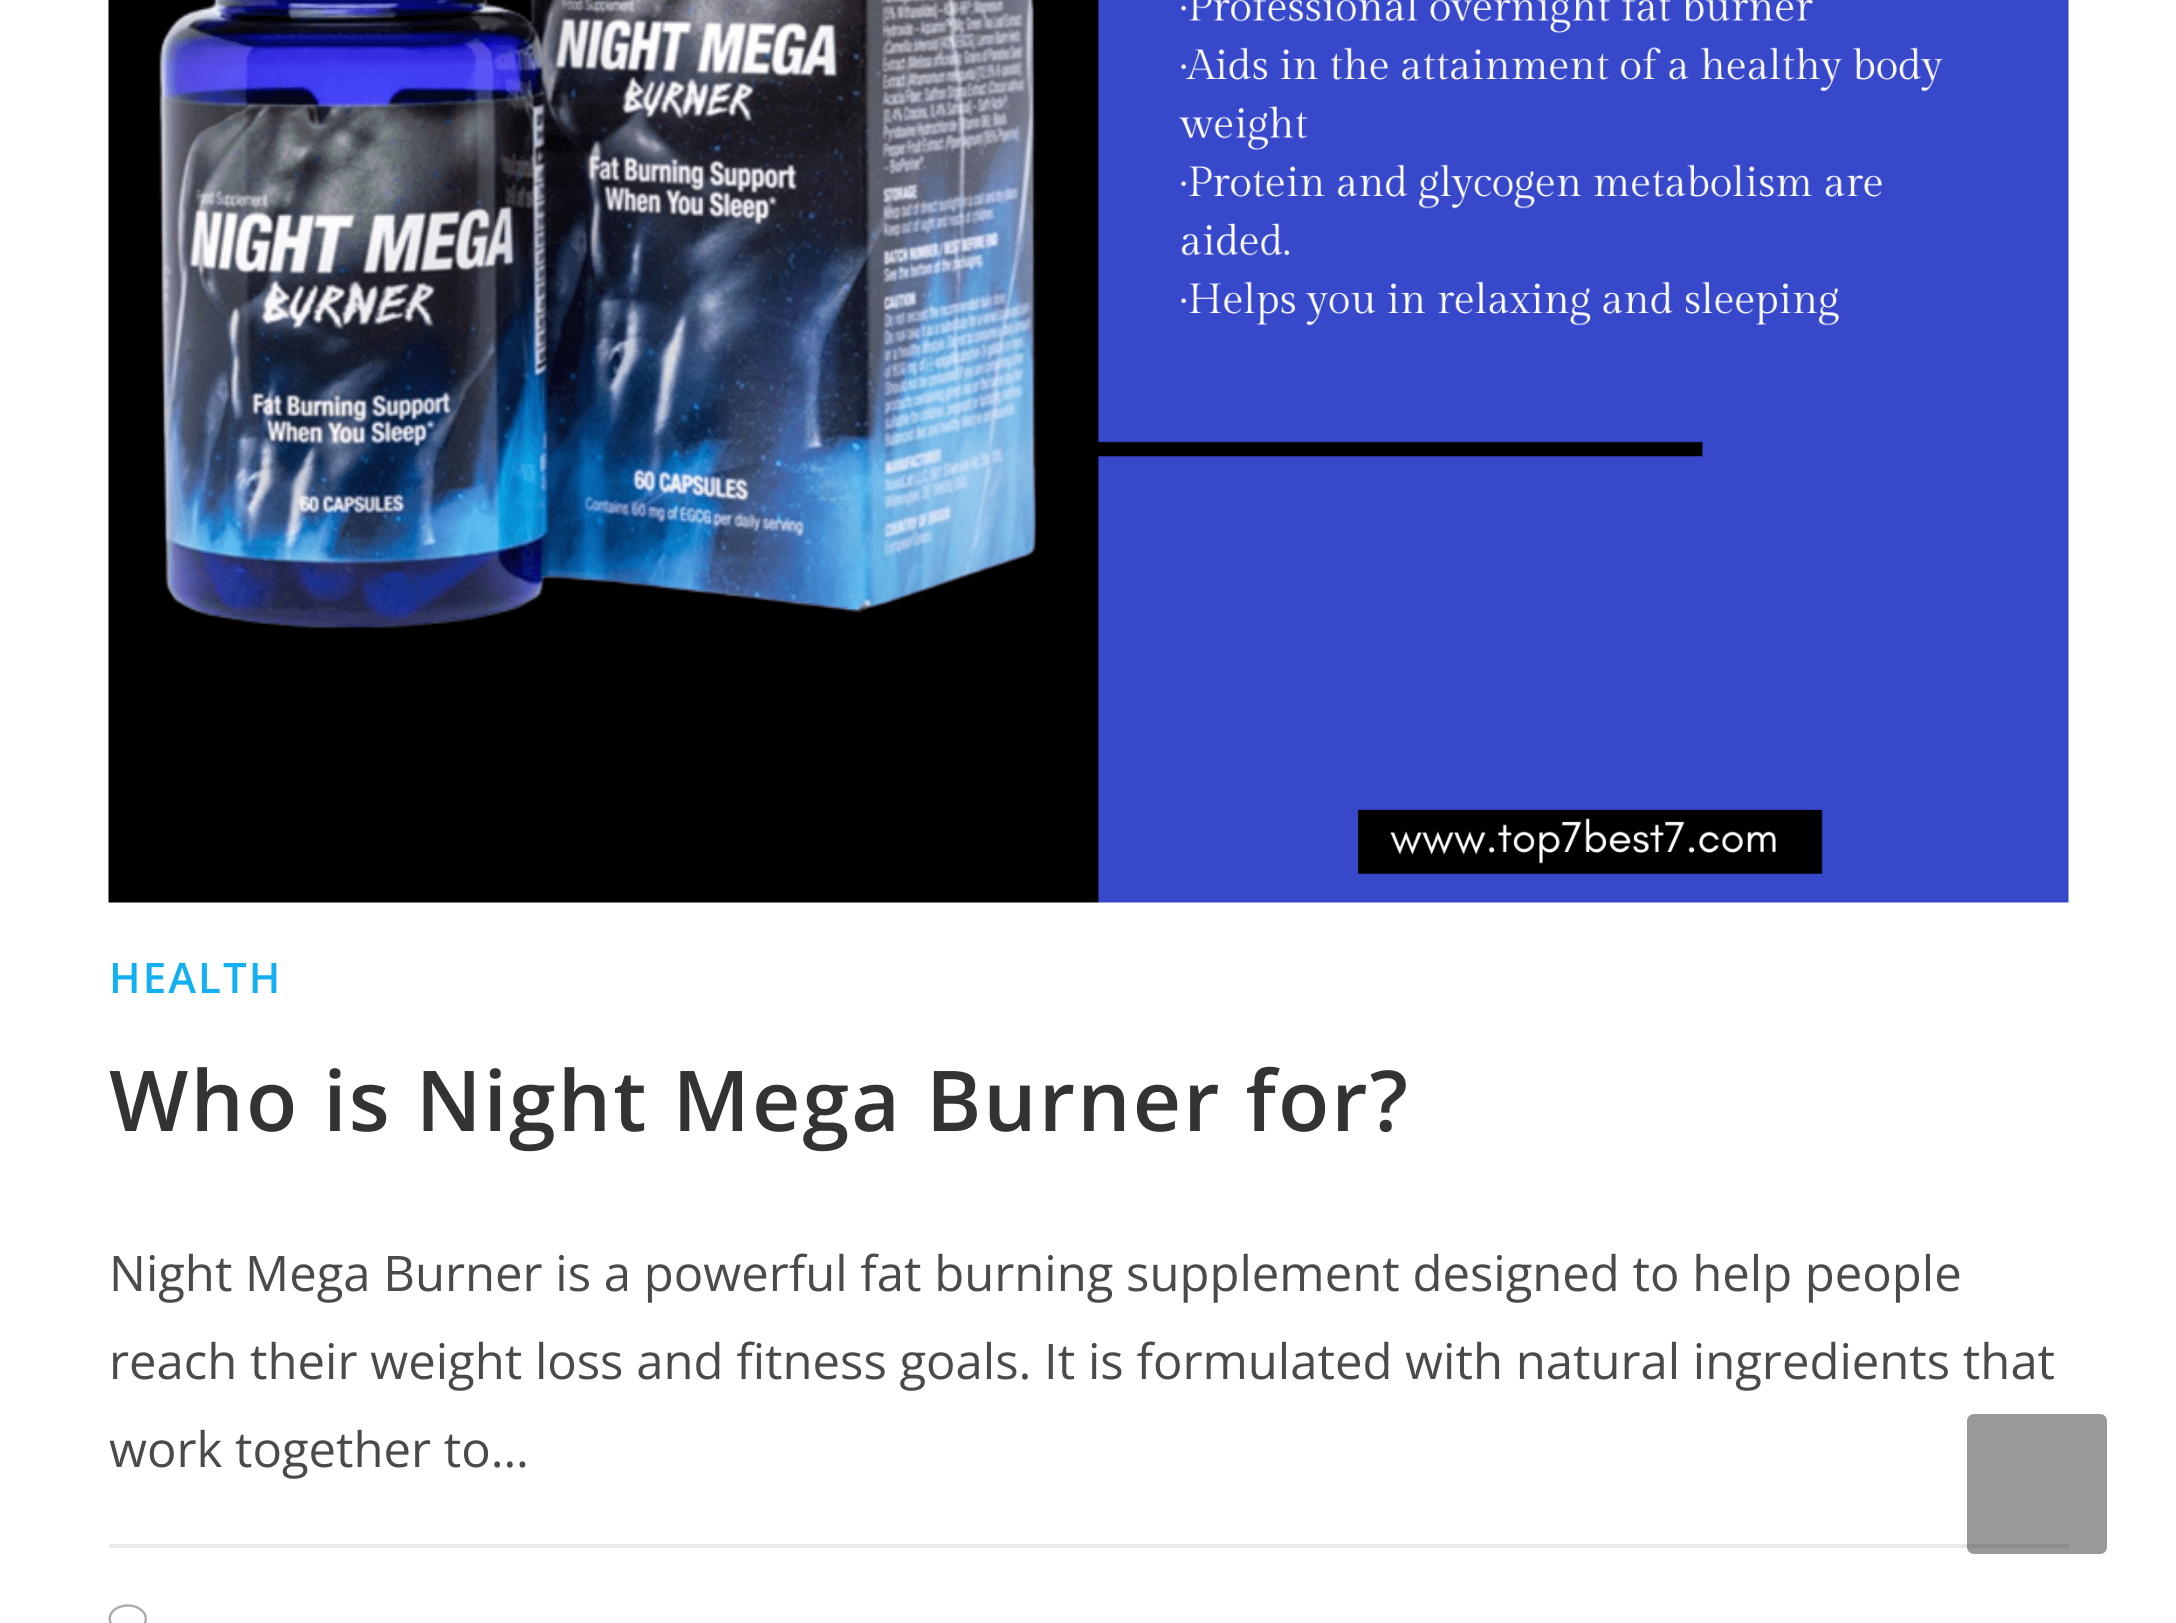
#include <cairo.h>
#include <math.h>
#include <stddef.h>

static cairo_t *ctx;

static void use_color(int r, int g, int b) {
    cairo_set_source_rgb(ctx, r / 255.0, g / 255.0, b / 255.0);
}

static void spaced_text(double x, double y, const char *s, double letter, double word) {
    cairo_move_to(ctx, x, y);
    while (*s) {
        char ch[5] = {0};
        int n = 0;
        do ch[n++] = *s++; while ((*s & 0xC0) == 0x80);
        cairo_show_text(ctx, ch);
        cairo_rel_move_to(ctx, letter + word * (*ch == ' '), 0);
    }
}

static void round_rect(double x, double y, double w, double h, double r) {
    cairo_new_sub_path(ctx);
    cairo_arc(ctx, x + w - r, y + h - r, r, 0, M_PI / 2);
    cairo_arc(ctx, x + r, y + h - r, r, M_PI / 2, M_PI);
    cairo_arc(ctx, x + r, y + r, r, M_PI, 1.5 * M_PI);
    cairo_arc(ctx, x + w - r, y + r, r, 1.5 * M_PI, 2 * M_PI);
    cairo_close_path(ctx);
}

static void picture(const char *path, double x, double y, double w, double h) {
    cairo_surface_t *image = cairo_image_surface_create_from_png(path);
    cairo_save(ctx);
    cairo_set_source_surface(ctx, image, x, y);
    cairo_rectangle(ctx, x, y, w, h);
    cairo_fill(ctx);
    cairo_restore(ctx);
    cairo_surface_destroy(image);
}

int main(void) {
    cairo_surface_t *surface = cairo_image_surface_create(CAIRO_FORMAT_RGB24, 2176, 1623);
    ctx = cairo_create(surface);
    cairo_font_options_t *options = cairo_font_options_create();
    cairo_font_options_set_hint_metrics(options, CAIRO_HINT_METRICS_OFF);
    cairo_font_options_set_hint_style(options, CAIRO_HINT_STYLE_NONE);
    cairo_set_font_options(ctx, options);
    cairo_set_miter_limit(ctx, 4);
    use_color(255, 255, 255);
    cairo_paint(ctx);
    picture("img1.png", 108, 0, 1961, 903);
    cairo_select_font_face(ctx, "Open Sans SemiBold", CAIRO_FONT_SLANT_NORMAL, CAIRO_FONT_WEIGHT_NORMAL);
    cairo_set_font_size(ctx, 42);
    use_color(19, 175, 240);
    spaced_text(109, 993, "HEALTH", 2.1, 0);
    cairo_set_font_size(ctx, 84);
    use_color(51, 51, 51);
    spaced_text(109, 1131, "Who is Night Mega Burner for?", 2.1, 0);
    cairo_select_font_face(ctx, "Open Sans", CAIRO_FONT_SLANT_NORMAL, CAIRO_FONT_WEIGHT_NORMAL);
    cairo_set_font_size(ctx, 49);
    use_color(74, 74, 74);
    cairo_move_to(ctx, 109, 1291);
    cairo_show_text(ctx, "Night Mega Burner is a powerful fat burning supplement designed to help people");
    cairo_move_to(ctx, 109, 1379);
    cairo_show_text(ctx, "reach their weight loss and fitness goals. It is formulated with natural ingredients that");
    cairo_move_to(ctx, 109, 1467);
    cairo_show_text(ctx, "work together to…");
    use_color(233, 233, 233);
    cairo_rectangle(ctx, 109, 1544, 1960, 4);
    cairo_fill(ctx);
    picture("img2.png", 108, 1604, 39, 19);
    cairo_set_source_rgba(ctx, 0, 0, 0, 0.4);
    round_rect(1967, 1414, 140, 140, 7);
    cairo_fill(ctx);
    cairo_surface_write_to_png(surface, "result.png");
    cairo_font_options_destroy(options);
    cairo_destroy(ctx);
    cairo_surface_destroy(surface);
    return 0;
}
